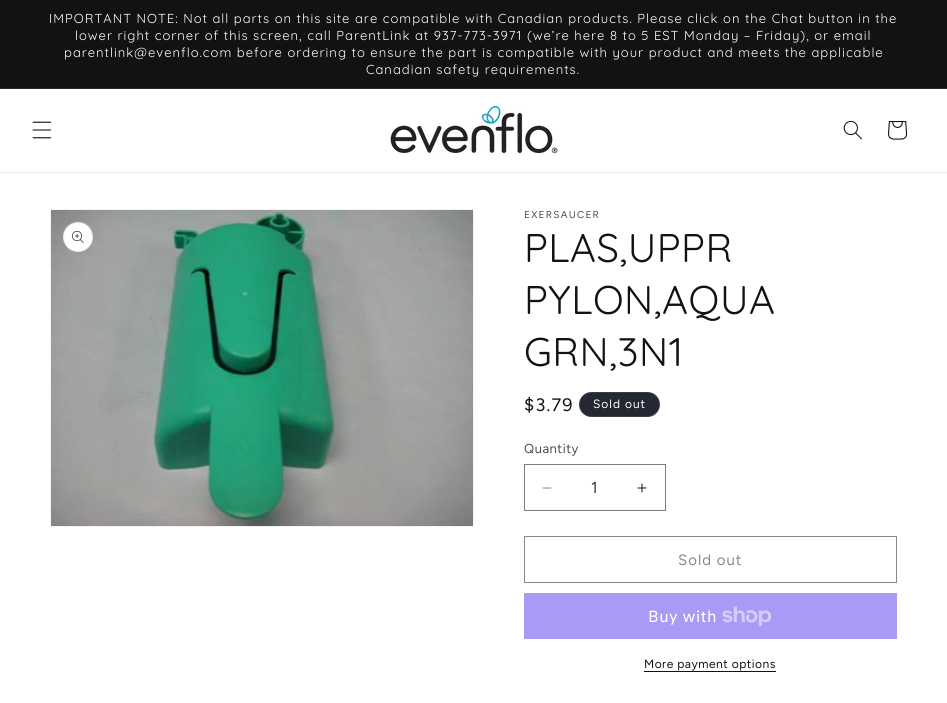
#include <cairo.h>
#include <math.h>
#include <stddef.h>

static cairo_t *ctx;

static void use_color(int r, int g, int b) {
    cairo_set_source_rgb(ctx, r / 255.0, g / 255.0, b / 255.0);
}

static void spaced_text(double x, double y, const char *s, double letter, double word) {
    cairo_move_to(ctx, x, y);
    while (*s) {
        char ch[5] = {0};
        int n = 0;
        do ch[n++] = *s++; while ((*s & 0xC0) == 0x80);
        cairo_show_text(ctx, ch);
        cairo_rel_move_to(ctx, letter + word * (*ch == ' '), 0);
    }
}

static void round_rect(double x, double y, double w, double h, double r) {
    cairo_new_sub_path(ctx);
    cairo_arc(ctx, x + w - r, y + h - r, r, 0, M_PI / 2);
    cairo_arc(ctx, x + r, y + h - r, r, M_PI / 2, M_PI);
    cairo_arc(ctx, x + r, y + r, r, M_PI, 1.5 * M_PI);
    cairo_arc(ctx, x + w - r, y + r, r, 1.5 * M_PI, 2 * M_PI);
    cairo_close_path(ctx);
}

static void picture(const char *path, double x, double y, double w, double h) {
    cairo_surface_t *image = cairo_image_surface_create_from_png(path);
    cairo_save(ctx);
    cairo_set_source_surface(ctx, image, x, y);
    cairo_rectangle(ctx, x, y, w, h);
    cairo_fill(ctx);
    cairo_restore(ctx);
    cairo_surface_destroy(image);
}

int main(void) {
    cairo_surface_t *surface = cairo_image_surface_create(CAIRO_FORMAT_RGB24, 947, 703);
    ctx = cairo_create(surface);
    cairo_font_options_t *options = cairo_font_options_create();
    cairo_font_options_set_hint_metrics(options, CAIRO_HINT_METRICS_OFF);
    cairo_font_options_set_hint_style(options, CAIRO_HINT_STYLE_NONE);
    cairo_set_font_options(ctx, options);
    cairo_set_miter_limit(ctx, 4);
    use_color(255, 255, 255);
    cairo_paint(ctx);
    use_color(18, 18, 18);
    cairo_rectangle(ctx, 0, 0, 947, 88);
    cairo_fill(ctx);
    use_color(37, 37, 37);
    cairo_rectangle(ctx, 0, 88, 947, 1);
    cairo_fill(ctx);
    cairo_select_font_face(ctx, "Quicksand", CAIRO_FONT_SLANT_NORMAL, CAIRO_FONT_WEIGHT_NORMAL);
    cairo_set_font_size(ctx, 13);
    use_color(255, 255, 255);
    spaced_text(49, 23, "IMPORTANT NOTE: Not all parts on this site are compatible with Canadian products. Please click on the Chat button in the", 1, 0);
    spaced_text(75, 40, "lower right corner of this screen, call ParentLink at 937-773-3971 (we’re here 8 to 5 EST Monday – Friday), or email", 1, 0);
    spaced_text(64, 57, "parentlink@evenflo.com before ordering to ensure the part is compatible with your product and meets the applicable", 1, 0);
    spaced_text(366, 74, "Canadian safety requirements.", 1, 0);
    use_color(236, 236, 236);
    cairo_rectangle(ctx, 0, 172, 947, 1);
    cairo_fill(ctx);
    picture("img1.png", 32, 121, 20, 18);
    picture("img2.png", 390, 106, 168, 48);
    picture("img3.png", 843, 120, 19, 20);
    picture("img4.png", 888, 121, 20, 19);
    cairo_rectangle(ctx, 50.5, 209.5, 423, 317);
    use_color(243, 243, 243);
    cairo_set_line_width(ctx, 1);
    cairo_stroke(ctx);
    picture("img5.png", 51, 210, 422, 316);
    use_color(255, 255, 255);
    cairo_arc(ctx, 78, 237, 15, 0, 2 * M_PI);
    cairo_fill(ctx);
    cairo_arc(ctx, 78, 237, 14.5, 0, 2 * M_PI);
    cairo_set_source_rgba(ctx, 0.071, 0.071, 0.071, 0.1);
    cairo_stroke(ctx);
    picture("img6.png", 72, 231, 12, 12);
    cairo_select_font_face(ctx, "Figtree", CAIRO_FONT_SLANT_NORMAL, CAIRO_FONT_WEIGHT_NORMAL);
    cairo_set_font_size(ctx, 10);
    use_color(77, 77, 77);
    spaced_text(524, 218, "EXERSAUCER", 1.25, 0);
    cairo_select_font_face(ctx, "Quicksand", CAIRO_FONT_SLANT_NORMAL, CAIRO_FONT_WEIGHT_NORMAL);
    cairo_set_font_size(ctx, 40);
    use_color(18, 18, 18);
    spaced_text(524, 262, "PLAS,UPPR", 0.5, 0);
    spaced_text(524, 314, "PYLON,AQUA", 0.5, 0);
    spaced_text(524, 366, "GRN,3N1", 0.5, 0);
    cairo_select_font_face(ctx, "Figtree", CAIRO_FONT_SLANT_NORMAL, CAIRO_FONT_WEIGHT_NORMAL);
    cairo_set_font_size(ctx, 18);
    spaced_text(524, 411, "$3.79", 1.25, 0);
    use_color(36, 40, 51);
    round_rect(579, 392, 81, 25, 12.5);
    cairo_fill(ctx);
    round_rect(579.5, 392.5, 80, 24, 12);
    cairo_set_source_rgba(ctx, 1, 1, 1, 0.1);
    cairo_stroke(ctx);
    cairo_set_font_size(ctx, 12);
    use_color(255, 255, 255);
    spaced_text(593, 408, "Sold out", 1, 0);
    cairo_set_font_size(ctx, 13);
    use_color(77, 77, 77);
    spaced_text(524, 453, "Quantity", 0.5, 0);
    picture("img7.png", 542, 487, 10, 2);
    picture("img8.png", 637, 483, 10, 10);
    cairo_rectangle(ctx, 524.5, 464.5, 141, 46);
    use_color(125, 125, 125);
    cairo_stroke(ctx);
    cairo_set_font_size(ctx, 16);
    use_color(54, 54, 54);
    cairo_move_to(ctx, 591, 493);
    cairo_show_text(ctx, "1");
    cairo_rectangle(ctx, 524.5, 536.5, 372, 46);
    use_color(137, 137, 137);
    cairo_stroke(ctx);
    cairo_set_font_size(ctx, 15);
    spaced_text(678, 565, "Sold out", 1, 0);
    use_color(170, 153, 245);
    cairo_rectangle(ctx, 524, 593, 373, 46);
    cairo_fill(ctx);
    cairo_select_font_face(ctx, "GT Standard", CAIRO_FONT_SLANT_NORMAL, CAIRO_FONT_WEIGHT_NORMAL);
    cairo_set_font_size(ctx, 16);
    use_color(255, 255, 255);
    spaced_text(648, 622, "Buy with", 0.5, 0);
    picture("img9.png", 722, 606, 50, 20);
    cairo_select_font_face(ctx, "Figtree", CAIRO_FONT_SLANT_NORMAL, CAIRO_FONT_WEIGHT_NORMAL);
    cairo_set_font_size(ctx, 12);
    use_color(18, 18, 18);
    spaced_text(644, 668, "More payment options", 0.5, 0);
    cairo_rectangle(ctx, 644, 671, 132, 1);
    cairo_fill(ctx);
    cairo_surface_write_to_png(surface, "result.png");
    cairo_font_options_destroy(options);
    cairo_destroy(ctx);
    cairo_surface_destroy(surface);
    return 0;
}
